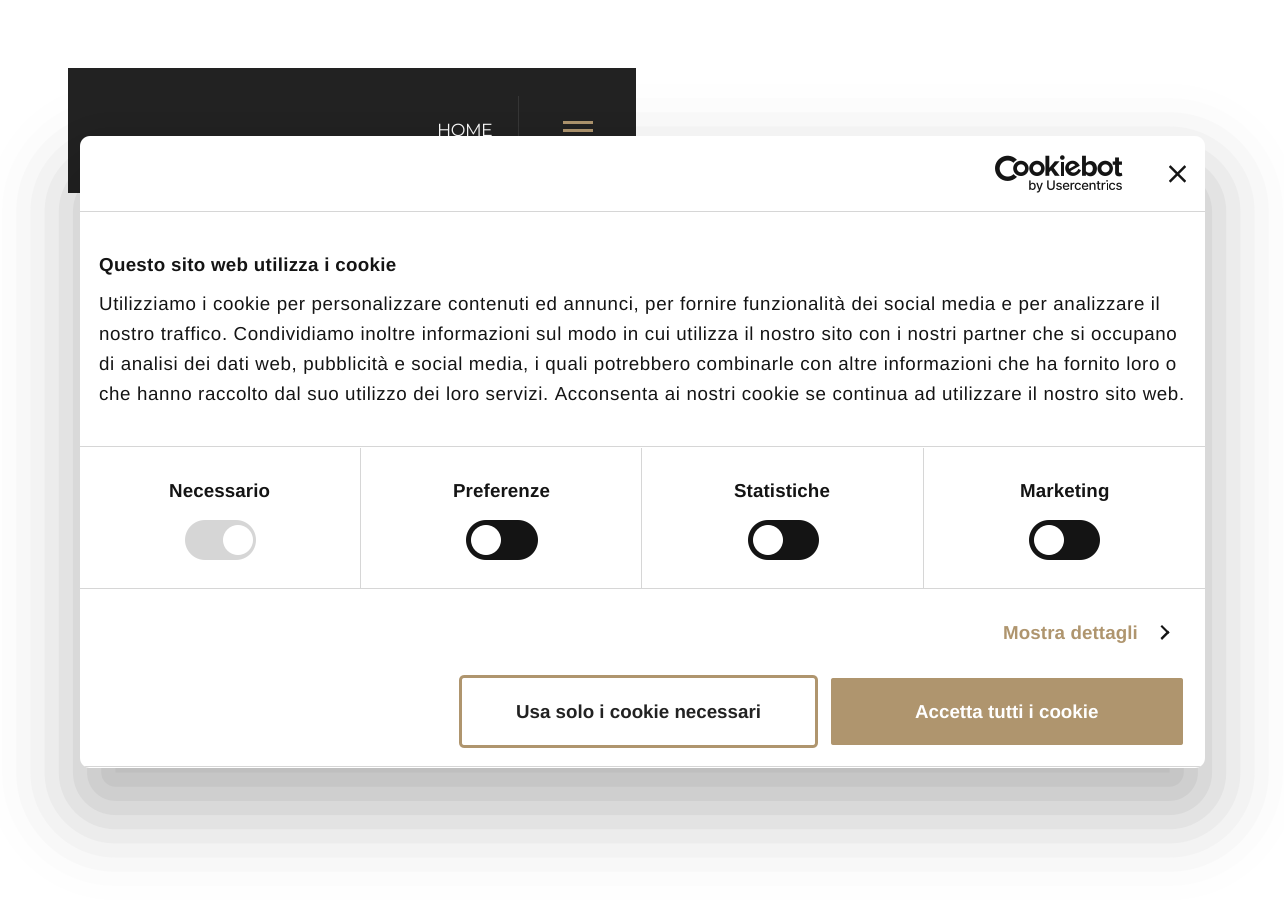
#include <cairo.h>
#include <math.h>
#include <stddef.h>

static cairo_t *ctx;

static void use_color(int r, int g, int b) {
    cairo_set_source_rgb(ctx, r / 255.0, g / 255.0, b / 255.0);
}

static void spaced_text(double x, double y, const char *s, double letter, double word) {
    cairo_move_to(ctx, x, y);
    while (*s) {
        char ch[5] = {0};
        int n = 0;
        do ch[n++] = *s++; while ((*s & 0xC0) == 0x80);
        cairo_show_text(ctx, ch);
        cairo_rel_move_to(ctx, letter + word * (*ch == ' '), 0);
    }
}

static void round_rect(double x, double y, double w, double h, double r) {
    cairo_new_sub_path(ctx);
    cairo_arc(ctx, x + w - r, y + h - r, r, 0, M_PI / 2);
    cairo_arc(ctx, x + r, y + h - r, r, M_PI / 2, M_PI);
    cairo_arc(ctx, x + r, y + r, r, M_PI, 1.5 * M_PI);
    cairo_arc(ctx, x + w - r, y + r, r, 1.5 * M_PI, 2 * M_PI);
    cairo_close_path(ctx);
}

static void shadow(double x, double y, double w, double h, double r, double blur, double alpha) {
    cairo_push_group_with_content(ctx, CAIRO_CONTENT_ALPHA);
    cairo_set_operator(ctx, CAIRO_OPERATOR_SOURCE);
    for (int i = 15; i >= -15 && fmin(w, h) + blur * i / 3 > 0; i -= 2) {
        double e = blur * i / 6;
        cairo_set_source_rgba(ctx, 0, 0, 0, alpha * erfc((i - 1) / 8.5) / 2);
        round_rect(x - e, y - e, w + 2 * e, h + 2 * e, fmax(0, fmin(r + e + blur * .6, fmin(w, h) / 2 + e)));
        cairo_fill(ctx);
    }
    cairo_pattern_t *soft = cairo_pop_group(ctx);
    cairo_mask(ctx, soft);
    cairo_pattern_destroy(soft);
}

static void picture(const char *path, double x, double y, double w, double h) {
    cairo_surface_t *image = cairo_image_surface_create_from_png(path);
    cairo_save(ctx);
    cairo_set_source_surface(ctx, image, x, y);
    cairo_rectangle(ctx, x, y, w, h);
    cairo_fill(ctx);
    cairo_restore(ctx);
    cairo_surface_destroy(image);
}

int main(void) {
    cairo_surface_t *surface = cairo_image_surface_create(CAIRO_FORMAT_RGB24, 1284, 903);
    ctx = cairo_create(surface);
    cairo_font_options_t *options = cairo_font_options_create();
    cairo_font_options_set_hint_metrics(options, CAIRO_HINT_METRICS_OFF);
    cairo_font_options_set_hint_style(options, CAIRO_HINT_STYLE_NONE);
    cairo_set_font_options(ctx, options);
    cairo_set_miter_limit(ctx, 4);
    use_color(255, 255, 255);
    cairo_paint(ctx);
    use_color(34, 34, 34);
    cairo_rectangle(ctx, 68, 68, 568, 125);
    cairo_fill(ctx);
    cairo_select_font_face(ctx, "Montserrat", CAIRO_FONT_SLANT_NORMAL, CAIRO_FONT_WEIGHT_NORMAL);
    cairo_set_font_size(ctx, 17.5);
    use_color(255, 255, 255);
    spaced_text(437, 136, "HOME", -0.5, 0);
    use_color(54, 54, 54);
    cairo_rectangle(ctx, 518, 96, 1, 40);
    cairo_fill(ctx);
    use_color(175, 149, 110);
    cairo_rectangle(ctx, 563, 129, 30, 3);
    cairo_fill(ctx);
    cairo_rectangle(ctx, 563, 121, 30, 3);
    cairo_fill(ctx);
    use_color(0, 0, 0);
    shadow(80, 176, 1125, 632, 10, 42.5, 0.3);
    use_color(255, 255, 255);
    round_rect(80, 136, 1125, 632, 10);
    cairo_fill(ctx);
    use_color(214, 214, 214);
    cairo_rectangle(ctx, 80, 211, 1125, 1);
    cairo_fill(ctx);
    picture("img1.png", 995, 155, 128, 38);
    picture("img2.png", 1169, 165, 17, 18);
    cairo_rectangle(ctx, 80, 446, 1125, 1);
    cairo_fill(ctx);
    cairo_select_font_face(ctx, "Liberation Sans", CAIRO_FONT_SLANT_NORMAL, CAIRO_FONT_WEIGHT_BOLD);
    cairo_set_font_size(ctx, 18.75);
    use_color(20, 20, 20);
    spaced_text(99, 271, "Questo sito web utilizza i cookie", 0.3, 0);
    cairo_select_font_face(ctx, "Liberation Sans", CAIRO_FONT_SLANT_NORMAL, CAIRO_FONT_WEIGHT_NORMAL);
    spaced_text(99, 310, "Utilizziamo i cookie per personalizzare contenuti ed annunci, per fornire funzionalità dei social media e per analizzare il", 0.62, 0);
    spaced_text(99, 340, "nostro traffico. Condividiamo inoltre informazioni sul modo in cui utilizza il nostro sito con i nostri partner che si occupano", 0.62, 0);
    spaced_text(99, 370, "di analisi dei dati web, pubblicità e social media, i quali potrebbero combinarle con altre informazioni che ha fornito loro o", 0.62, 0);
    spaced_text(99, 400, "che hanno raccolto dal suo utilizzo dei loro servizi. Acconsenta ai nostri cookie se continua ad utilizzare il nostro sito web.", 0.62, 0);
    use_color(214, 214, 214);
    cairo_rectangle(ctx, 80, 588, 1125, 1);
    cairo_fill(ctx);
    cairo_rectangle(ctx, 360, 448, 1, 140);
    cairo_fill(ctx);
    cairo_select_font_face(ctx, "Liberation Sans", CAIRO_FONT_SLANT_NORMAL, CAIRO_FONT_WEIGHT_BOLD);
    use_color(20, 20, 20);
    spaced_text(169, 497, "Necessario", 0.1, 0);
    use_color(214, 214, 214);
    round_rect(185, 520, 71, 40, 20);
    cairo_fill(ctx);
    use_color(255, 255, 255);
    cairo_arc(ctx, 238, 540, 15, 0, 2 * M_PI);
    cairo_fill(ctx);
    use_color(214, 214, 214);
    cairo_rectangle(ctx, 641, 448, 1, 140);
    cairo_fill(ctx);
    use_color(20, 20, 20);
    spaced_text(453, 497, "Preferenze", 0.1, 0);
    round_rect(466, 520, 72, 40, 20);
    cairo_fill(ctx);
    use_color(255, 255, 255);
    cairo_arc(ctx, 486, 540, 15, 0, 2 * M_PI);
    cairo_fill(ctx);
    use_color(214, 214, 214);
    cairo_rectangle(ctx, 923, 448, 1, 140);
    cairo_fill(ctx);
    use_color(20, 20, 20);
    spaced_text(734, 497, "Statistiche", 0.1, 0);
    round_rect(748, 520, 71, 40, 20);
    cairo_fill(ctx);
    use_color(255, 255, 255);
    cairo_arc(ctx, 768, 540, 15, 0, 2 * M_PI);
    cairo_fill(ctx);
    use_color(20, 20, 20);
    spaced_text(1020, 497, "Marketing", 0.1, 0);
    round_rect(1029, 520, 71, 40, 20);
    cairo_fill(ctx);
    use_color(255, 255, 255);
    cairo_arc(ctx, 1049, 540, 15, 0, 2 * M_PI);
    cairo_fill(ctx);
    use_color(175, 149, 110);
    spaced_text(1003, 639, "Mostra dettagli", 0.1, 0);
    use_color(20, 20, 20);
    cairo_new_path(ctx);
    cairo_move_to(ctx, 1162, 625);
    cairo_line_to(ctx, 1169.5, 632.5);
    cairo_line_to(ctx, 1168, 634);
    cairo_line_to(ctx, 1160.5, 626.5);
    cairo_close_path(ctx);
    cairo_fill(ctx);
    cairo_new_path(ctx);
    cairo_move_to(ctx, 1168, 630.5);
    cairo_line_to(ctx, 1169.5, 632.5);
    cairo_line_to(ctx, 1162, 640);
    cairo_line_to(ctx, 1160.5, 638);
    cairo_close_path(ctx);
    cairo_fill(ctx);
    cairo_save(ctx);
    round_rect(80, 136, 1125, 632, 10);
    cairo_clip(ctx);
    use_color(214, 214, 214);
    cairo_rectangle(ctx, 80, 766, 1125, 1);
    cairo_fill(ctx);
    cairo_restore(ctx);
    round_rect(460.5, 676.5, 356, 70, 3.5);
    use_color(175, 149, 110);
    cairo_set_line_width(ctx, 3);
    cairo_stroke(ctx);
    use_color(34, 34, 34);
    cairo_move_to(ctx, 516, 718);
    cairo_show_text(ctx, "Usa solo i cookie necessari");
    use_color(175, 149, 110);
    round_rect(829.5, 676.5, 355, 70, 3.5);
    cairo_fill_preserve(ctx);
    use_color(255, 255, 255);
    cairo_stroke(ctx);
    cairo_move_to(ctx, 915, 718);
    cairo_show_text(ctx, "Accetta tutti i cookie");
    cairo_surface_write_to_png(surface, "result.png");
    cairo_font_options_destroy(options);
    cairo_destroy(ctx);
    cairo_surface_destroy(surface);
    return 0;
}
